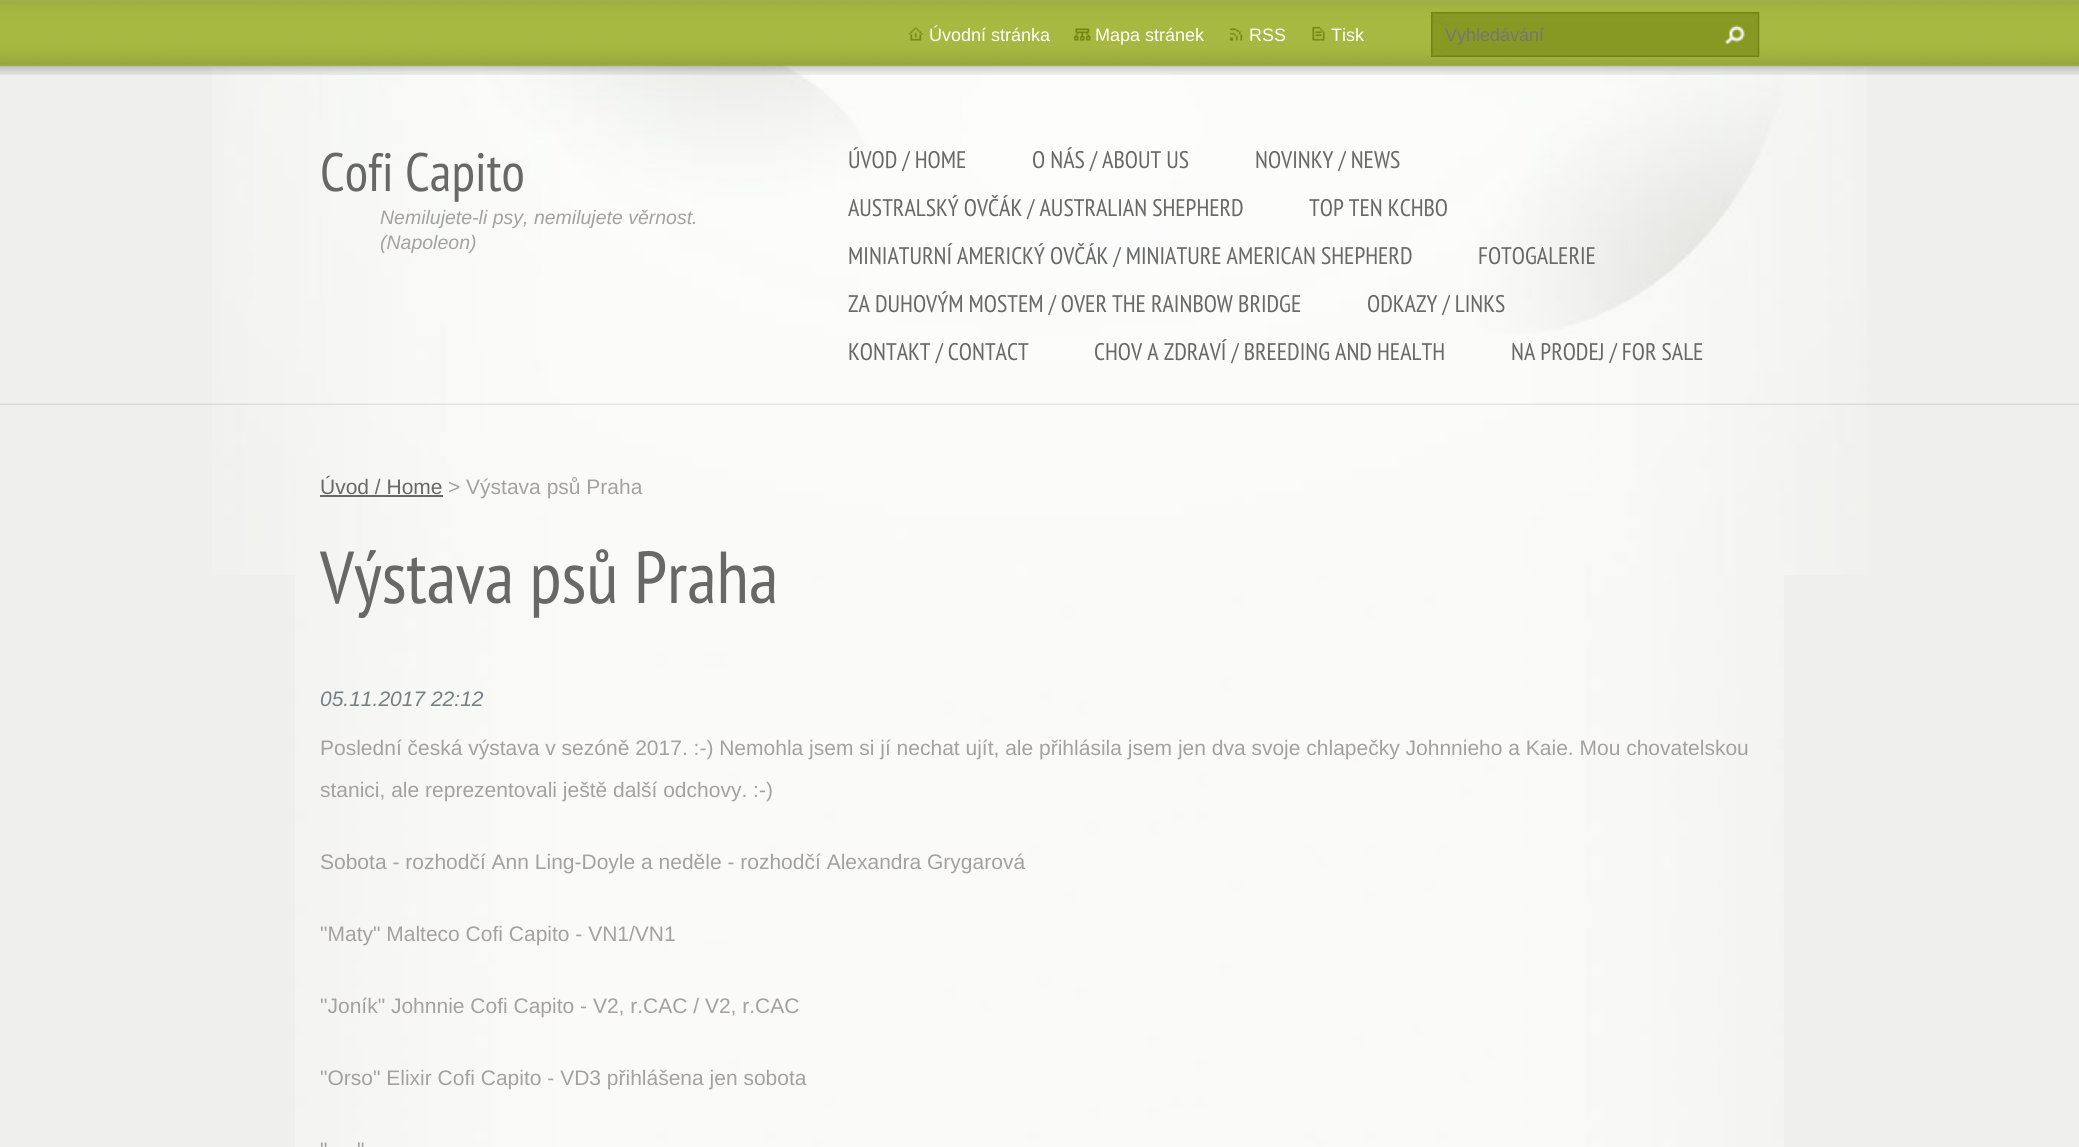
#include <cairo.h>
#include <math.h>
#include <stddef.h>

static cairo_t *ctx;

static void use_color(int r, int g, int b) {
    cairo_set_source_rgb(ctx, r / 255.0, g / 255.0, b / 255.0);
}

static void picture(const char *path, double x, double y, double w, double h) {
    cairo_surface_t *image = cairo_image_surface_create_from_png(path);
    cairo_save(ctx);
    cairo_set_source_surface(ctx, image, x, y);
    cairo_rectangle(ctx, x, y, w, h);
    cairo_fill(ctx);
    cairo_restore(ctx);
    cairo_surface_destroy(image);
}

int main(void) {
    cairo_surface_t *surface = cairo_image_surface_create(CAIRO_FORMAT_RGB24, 2079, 1147);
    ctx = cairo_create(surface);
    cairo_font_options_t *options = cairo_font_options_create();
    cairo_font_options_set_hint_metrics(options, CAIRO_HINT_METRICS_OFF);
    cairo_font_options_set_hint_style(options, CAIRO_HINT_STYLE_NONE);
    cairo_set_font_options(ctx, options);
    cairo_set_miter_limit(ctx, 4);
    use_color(239, 239, 237);
    cairo_paint(ctx);
    picture("img1.png", 295, 575, 1489, 572);
    picture("img2.png", 212, 65, 1655, 510);
    picture("img3.png", 0, 403, 2079, 2);
    picture("img4.png", 0, 0, 2079, 75);
    picture("img5.png", 908, 26, 15, 15);
    cairo_select_font_face(ctx, "Liberation Sans", CAIRO_FONT_SLANT_NORMAL, CAIRO_FONT_WEIGHT_NORMAL);
    cairo_set_font_size(ctx, 18);
    use_color(255, 255, 255);
    cairo_move_to(ctx, 929, 41);
    cairo_show_text(ctx, "Úvodní stránka");
    picture("img6.png", 1073, 28, 18, 13);
    cairo_move_to(ctx, 1095, 41);
    cairo_show_text(ctx, "Mapa stránek");
    picture("img7.png", 1229, 28, 14, 13);
    cairo_move_to(ctx, 1249, 41);
    cairo_show_text(ctx, "RSS");
    picture("img8.png", 1312, 26, 13, 15);
    cairo_move_to(ctx, 1331, 41);
    cairo_show_text(ctx, "Tisk");
    picture("img9.png", 1431, 12, 329, 45);
    use_color(117, 117, 117);
    cairo_move_to(ctx, 1445, 41);
    cairo_show_text(ctx, "Vyhledávání");
    picture("img10.png", 1724, 25, 21, 20);
    cairo_select_font_face(ctx, "PT Sans Narrow", CAIRO_FONT_SLANT_NORMAL, CAIRO_FONT_WEIGHT_NORMAL);
    cairo_set_font_size(ctx, 54);
    use_color(104, 104, 104);
    cairo_move_to(ctx, 320, 191);
    cairo_show_text(ctx, "Cofi Capito");
    cairo_select_font_face(ctx, "Liberation Sans", CAIRO_FONT_SLANT_ITALIC, CAIRO_FONT_WEIGHT_NORMAL);
    cairo_set_font_size(ctx, 19.5);
    use_color(163, 161, 161);
    cairo_move_to(ctx, 380, 224);
    cairo_show_text(ctx, "Nemilujete-li psy, nemilujete věrnost.");
    cairo_move_to(ctx, 380, 249);
    cairo_show_text(ctx, "(Napoleon)");
    cairo_select_font_face(ctx, "PT Sans Narrow", CAIRO_FONT_SLANT_NORMAL, CAIRO_FONT_WEIGHT_NORMAL);
    cairo_set_font_size(ctx, 24);
    use_color(104, 104, 104);
    cairo_move_to(ctx, 848, 168);
    cairo_show_text(ctx, "ÚVOD / HOME");
    cairo_move_to(ctx, 1032, 168);
    cairo_show_text(ctx, "O NÁS / ABOUT US");
    cairo_move_to(ctx, 1255, 168);
    cairo_show_text(ctx, "NOVINKY / NEWS");
    cairo_move_to(ctx, 848, 216);
    cairo_show_text(ctx, "AUSTRALSKÝ OVČÁK / AUSTRALIAN SHEPHERD");
    cairo_move_to(ctx, 1309, 216);
    cairo_show_text(ctx, "TOP TEN KCHBO");
    cairo_move_to(ctx, 848, 264);
    cairo_show_text(ctx, "MINIATURNÍ AMERICKÝ OVČÁK / MINIATURE AMERICAN SHEPHERD");
    cairo_move_to(ctx, 1478, 264);
    cairo_show_text(ctx, "FOTOGALERIE");
    cairo_move_to(ctx, 848, 312);
    cairo_show_text(ctx, "ZA DUHOVÝM MOSTEM / OVER THE RAINBOW BRIDGE");
    cairo_move_to(ctx, 1367, 312);
    cairo_show_text(ctx, "ODKAZY / LINKS");
    cairo_move_to(ctx, 848, 360);
    cairo_show_text(ctx, "KONTAKT / CONTACT");
    cairo_move_to(ctx, 1094, 360);
    cairo_show_text(ctx, "CHOV A ZDRAVÍ / BREEDING AND HEALTH");
    cairo_move_to(ctx, 1511, 360);
    cairo_show_text(ctx, "NA PRODEJ / FOR SALE");
    cairo_select_font_face(ctx, "Liberation Sans", CAIRO_FONT_SLANT_NORMAL, CAIRO_FONT_WEIGHT_NORMAL);
    cairo_set_font_size(ctx, 21);
    cairo_move_to(ctx, 320, 494);
    cairo_show_text(ctx, "Úvod / Home");
    cairo_rectangle(ctx, 320, 495, 123, 2);
    cairo_fill(ctx);
    use_color(163, 161, 161);
    cairo_move_to(ctx, 448, 494);
    cairo_show_text(ctx, "> Výstava psů Praha");
    cairo_save(ctx);
    cairo_rectangle(ctx, 320, 435, 1440, 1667);
    cairo_clip(ctx);
    cairo_select_font_face(ctx, "PT Sans Narrow", CAIRO_FONT_SLANT_NORMAL, CAIRO_FONT_WEIGHT_NORMAL);
    cairo_set_font_size(ctx, 73.5);
    use_color(104, 104, 104);
    cairo_move_to(ctx, 320, 603);
    cairo_show_text(ctx, "Výstava psů Praha");
    cairo_restore(ctx);
    cairo_select_font_face(ctx, "Liberation Sans", CAIRO_FONT_SLANT_ITALIC, CAIRO_FONT_WEIGHT_NORMAL);
    use_color(117, 128, 133);
    cairo_move_to(ctx, 320, 706);
    cairo_show_text(ctx, "05.11.2017 22:12");
    cairo_select_font_face(ctx, "Liberation Sans", CAIRO_FONT_SLANT_NORMAL, CAIRO_FONT_WEIGHT_NORMAL);
    use_color(163, 161, 161);
    cairo_move_to(ctx, 320, 755);
    cairo_show_text(ctx, "Poslední česká výstava v sezóně 2017. :-) Nemohla jsem si jí nechat ujít, ale přihlásila jsem jen dva svoje chlapečky Johnnieho a Kaie. Mou chovatelskou");
    cairo_move_to(ctx, 320, 797);
    cairo_show_text(ctx, "stanici, ale reprezentovali ještě další odchovy. :-)");
    cairo_move_to(ctx, 320, 869);
    cairo_show_text(ctx, "Sobota - rozhodčí Ann Ling-Doyle a neděle - rozhodčí Alexandra Grygarová");
    cairo_move_to(ctx, 320, 941);
    cairo_show_text(ctx, "\"Maty\" Malteco Cofi Capito - VN1/VN1");
    cairo_move_to(ctx, 320, 1013);
    cairo_show_text(ctx, "\"Joník\" Johnnie Cofi Capito - V2, r.CAC / V2, r.CAC");
    cairo_move_to(ctx, 320, 1085);
    cairo_show_text(ctx, "\"Orso\" Elixir Cofi Capito - VD3 přihlášena jen sobota");
    cairo_move_to(ctx, 320, 1157);
    cairo_show_text(ctx, "\"");
    cairo_move_to(ctx, 357, 1157);
    cairo_show_text(ctx, "\"");
    cairo_surface_write_to_png(surface, "result.png");
    cairo_font_options_destroy(options);
    cairo_destroy(ctx);
    cairo_surface_destroy(surface);
    return 0;
}
